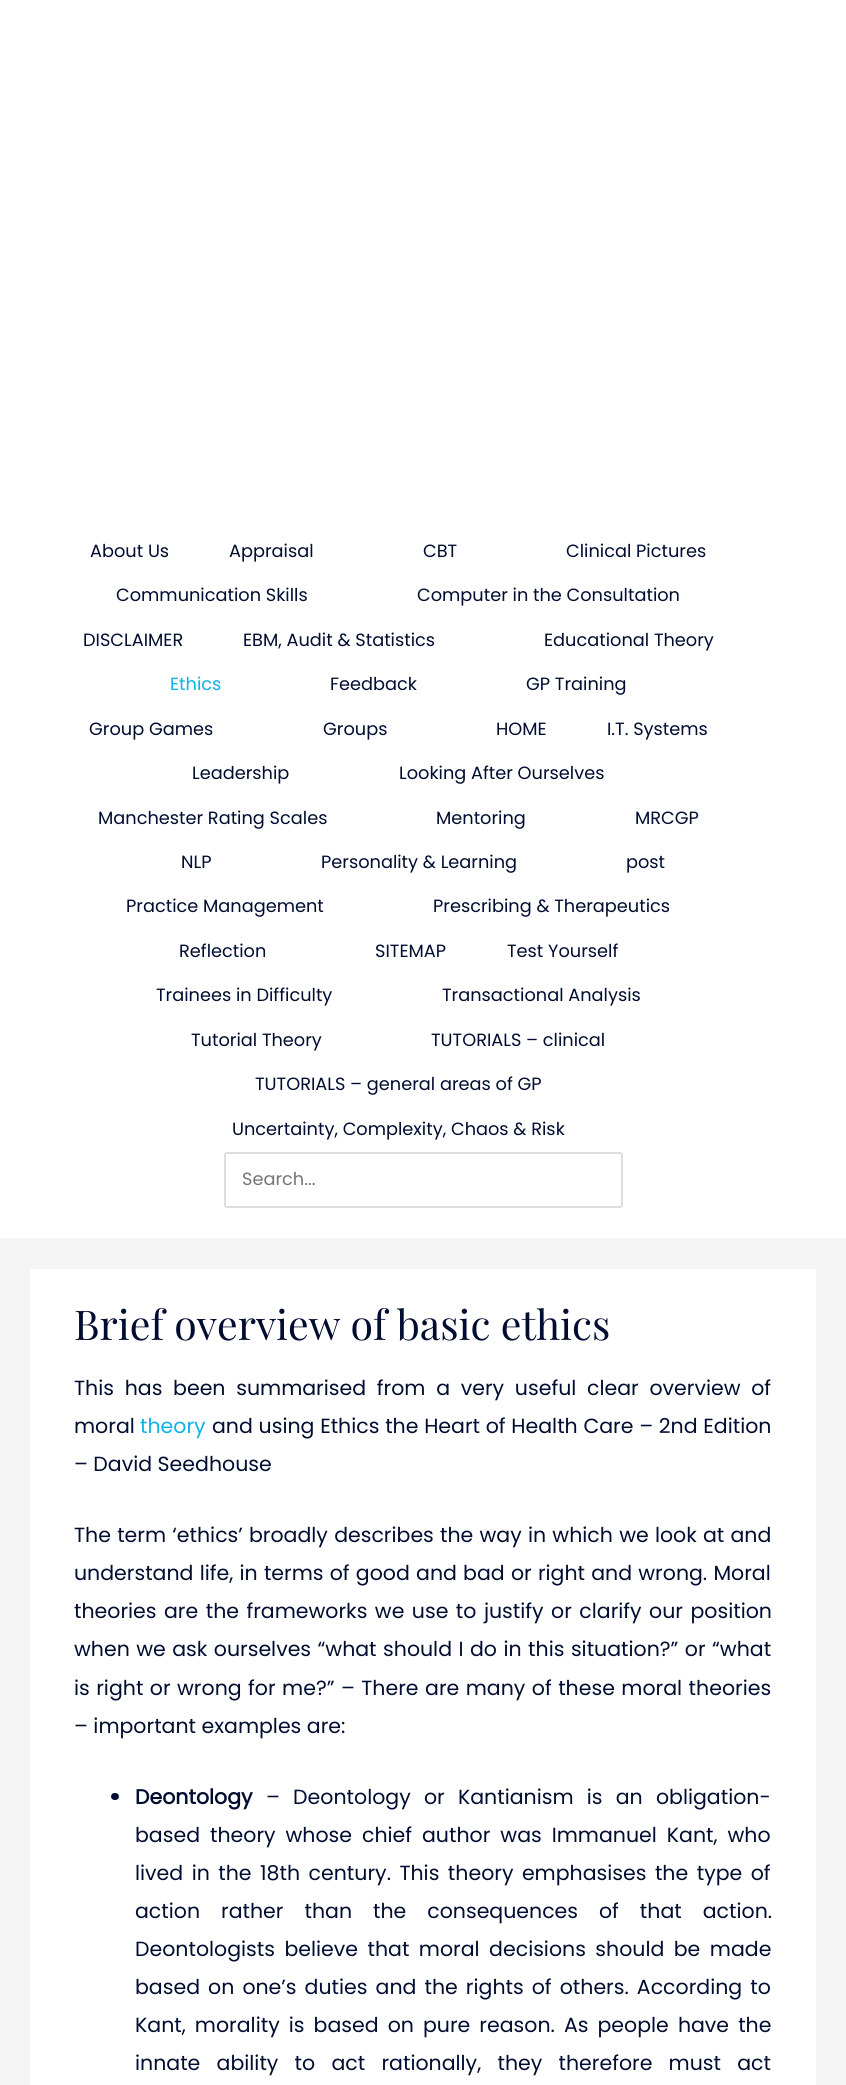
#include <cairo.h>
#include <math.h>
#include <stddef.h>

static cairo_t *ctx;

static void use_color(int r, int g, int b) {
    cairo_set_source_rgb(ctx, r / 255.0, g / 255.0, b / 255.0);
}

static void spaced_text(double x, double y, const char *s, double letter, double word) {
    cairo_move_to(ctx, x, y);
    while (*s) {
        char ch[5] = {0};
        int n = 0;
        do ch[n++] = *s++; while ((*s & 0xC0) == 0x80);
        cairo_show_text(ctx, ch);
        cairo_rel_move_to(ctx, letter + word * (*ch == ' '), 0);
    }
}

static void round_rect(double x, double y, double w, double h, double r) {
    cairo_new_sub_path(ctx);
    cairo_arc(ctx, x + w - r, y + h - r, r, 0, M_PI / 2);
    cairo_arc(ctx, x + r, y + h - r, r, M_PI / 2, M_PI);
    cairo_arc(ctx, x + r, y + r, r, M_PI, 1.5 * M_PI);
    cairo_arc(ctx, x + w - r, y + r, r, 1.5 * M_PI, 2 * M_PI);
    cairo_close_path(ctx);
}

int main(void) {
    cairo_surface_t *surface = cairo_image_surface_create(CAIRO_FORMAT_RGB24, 846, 2085);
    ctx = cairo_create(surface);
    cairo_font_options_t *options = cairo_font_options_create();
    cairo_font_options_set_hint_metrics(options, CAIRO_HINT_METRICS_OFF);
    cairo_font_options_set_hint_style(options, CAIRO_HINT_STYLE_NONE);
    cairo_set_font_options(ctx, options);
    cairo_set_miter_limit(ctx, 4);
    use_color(245, 245, 245);
    cairo_paint(ctx);
    use_color(255, 255, 255);
    cairo_rectangle(ctx, 0, 0, 846, 1238);
    cairo_fill(ctx);
    cairo_select_font_face(ctx, "Poppins", CAIRO_FONT_SLANT_NORMAL, CAIRO_FONT_WEIGHT_NORMAL);
    cairo_set_font_size(ctx, 17.75);
    use_color(0, 12, 48);
    cairo_move_to(ctx, 90, 557);
    cairo_show_text(ctx, "About Us");
    cairo_move_to(ctx, 229, 557);
    cairo_show_text(ctx, "Appraisal");
    cairo_move_to(ctx, 423, 557);
    cairo_show_text(ctx, "CBT");
    cairo_move_to(ctx, 566, 557);
    cairo_show_text(ctx, "Clinical Pictures");
    cairo_move_to(ctx, 116, 601);
    cairo_show_text(ctx, "Communication Skills");
    cairo_move_to(ctx, 417, 601);
    cairo_show_text(ctx, "Computer in the Consultation");
    cairo_move_to(ctx, 83, 646);
    cairo_show_text(ctx, "DISCLAIMER");
    cairo_move_to(ctx, 243, 646);
    cairo_show_text(ctx, "EBM, Audit & Statistics");
    cairo_move_to(ctx, 544, 646);
    cairo_show_text(ctx, "Educational Theory");
    use_color(14, 178, 231);
    cairo_move_to(ctx, 170, 690);
    cairo_show_text(ctx, "Ethics");
    use_color(0, 12, 48);
    cairo_move_to(ctx, 330, 690);
    cairo_show_text(ctx, "Feedback");
    cairo_move_to(ctx, 526, 690);
    cairo_show_text(ctx, "GP Training");
    cairo_move_to(ctx, 89, 735);
    cairo_show_text(ctx, "Group Games");
    cairo_move_to(ctx, 323, 735);
    cairo_show_text(ctx, "Groups");
    cairo_move_to(ctx, 496, 735);
    cairo_show_text(ctx, "HOME");
    cairo_move_to(ctx, 607, 735);
    cairo_show_text(ctx, "I.T. Systems");
    cairo_move_to(ctx, 192, 779);
    cairo_show_text(ctx, "Leadership");
    cairo_move_to(ctx, 399, 779);
    cairo_show_text(ctx, "Looking After Ourselves");
    cairo_move_to(ctx, 98, 824);
    cairo_show_text(ctx, "Manchester Rating Scales");
    cairo_move_to(ctx, 436, 824);
    cairo_show_text(ctx, "Mentoring");
    cairo_move_to(ctx, 635, 824);
    cairo_show_text(ctx, "MRCGP");
    cairo_move_to(ctx, 181, 868);
    cairo_show_text(ctx, "NLP");
    cairo_move_to(ctx, 321, 868);
    cairo_show_text(ctx, "Personality & Learning");
    cairo_move_to(ctx, 626, 868);
    cairo_show_text(ctx, "post");
    cairo_move_to(ctx, 126, 912);
    cairo_show_text(ctx, "Practice Management");
    cairo_move_to(ctx, 433, 912);
    cairo_show_text(ctx, "Prescribing & Therapeutics");
    cairo_move_to(ctx, 179, 957);
    cairo_show_text(ctx, "Reflection");
    cairo_move_to(ctx, 375, 957);
    cairo_show_text(ctx, "SITEMAP");
    cairo_move_to(ctx, 507, 957);
    cairo_show_text(ctx, "Test Yourself");
    cairo_move_to(ctx, 156, 1001);
    cairo_show_text(ctx, "Trainees in Difficulty");
    cairo_move_to(ctx, 442, 1001);
    cairo_show_text(ctx, "Transactional Analysis");
    cairo_move_to(ctx, 191, 1046);
    cairo_show_text(ctx, "Tutorial Theory");
    cairo_move_to(ctx, 431, 1046);
    cairo_show_text(ctx, "TUTORIALS – clinical");
    cairo_move_to(ctx, 255, 1090);
    cairo_show_text(ctx, "TUTORIALS – general areas of GP");
    cairo_move_to(ctx, 232, 1135);
    cairo_show_text(ctx, "Uncertainty, Complexity, Chaos & Risk");
    round_rect(225, 1153, 397, 54, 2);
    use_color(221, 221, 221);
    cairo_stroke(ctx);
    use_color(117, 117, 117);
    cairo_move_to(ctx, 242, 1185);
    cairo_show_text(ctx, "Search...");
    use_color(255, 255, 255);
    cairo_rectangle(ctx, 30, 1269, 786, 816);
    cairo_fill(ctx);
    cairo_select_font_face(ctx, "Playfair Display", CAIRO_FONT_SLANT_NORMAL, CAIRO_FONT_WEIGHT_NORMAL);
    cairo_set_font_size(ctx, 41);
    use_color(0, 12, 48);
    cairo_move_to(ctx, 74, 1340);
    cairo_show_text(ctx, "Brief overview of basic ethics");
    cairo_select_font_face(ctx, "Poppins", CAIRO_FONT_SLANT_NORMAL, CAIRO_FONT_WEIGHT_NORMAL);
    cairo_set_font_size(ctx, 20.5);
    spaced_text(74, 1395, "This has been summarised from a very useful clear overview of", 0, 5.25);
    cairo_move_to(ctx, 74, 1433);
    cairo_show_text(ctx, "moral");
    use_color(14, 178, 231);
    cairo_move_to(ctx, 140, 1433);
    cairo_show_text(ctx, "theory");
    use_color(0, 12, 48);
    spaced_text(212, 1433, "and using Ethics the Heart of Health Care – 2nd Edition", 0, 0.25);
    cairo_move_to(ctx, 74, 1471);
    cairo_show_text(ctx, "– David Seedhouse");
    spaced_text(74, 1542, "The term ‘ethics’ broadly describes the way in which we look at and", 0, 0.75);
    spaced_text(74, 1580, "understand life, in terms of good and bad or right and wrong. Moral", 0, 0.75);
    spaced_text(74, 1618, "theories are the frameworks we use to justify or clarify our position", 0, 2);
    spaced_text(74, 1656, "when we ask ourselves “what should I do in this situation?” or “what", 0, 1);
    spaced_text(74, 1695, "is right or wrong for me?” – There are many of these moral theories", 0, 1);
    cairo_move_to(ctx, 74, 1733);
    cairo_show_text(ctx, "– important examples are:");
    round_rect(111, 1793, 8, 7, 3.5);
    cairo_fill(ctx);
    cairo_select_font_face(ctx, "Poppins", CAIRO_FONT_SLANT_NORMAL, CAIRO_FONT_WEIGHT_BOLD);
    cairo_move_to(ctx, 135, 1804);
    cairo_show_text(ctx, "Deontology");
    cairo_select_font_face(ctx, "Poppins", CAIRO_FONT_SLANT_NORMAL, CAIRO_FONT_WEIGHT_NORMAL);
    spaced_text(266, 1804, "– Deontology or Kantianism is an obligation-", 0, 7.75);
    spaced_text(135, 1842, "based theory whose chief author was Immanuel Kant, who", 0, 4.5);
    spaced_text(135, 1880, "lived in the 18th century. This theory emphasises the type of", 0, 3);
    spaced_text(135, 1918, "action rather than the consequences of that action.", 0, 15.5);
    spaced_text(135, 1956, "Deontologists believe that moral decisions should be made", 0, 4);
    spaced_text(135, 1994, "based on one’s duties and the rights of others. According to", 0, 2.6);
    spaced_text(135, 2032, "Kant, morality is based on pure reason. As people have the", 0, 3.6);
    spaced_text(135, 2070, "innate ability to act rationally, they therefore must act", 0, 10.75);
    cairo_surface_write_to_png(surface, "result.png");
    cairo_font_options_destroy(options);
    cairo_destroy(ctx);
    cairo_surface_destroy(surface);
    return 0;
}
